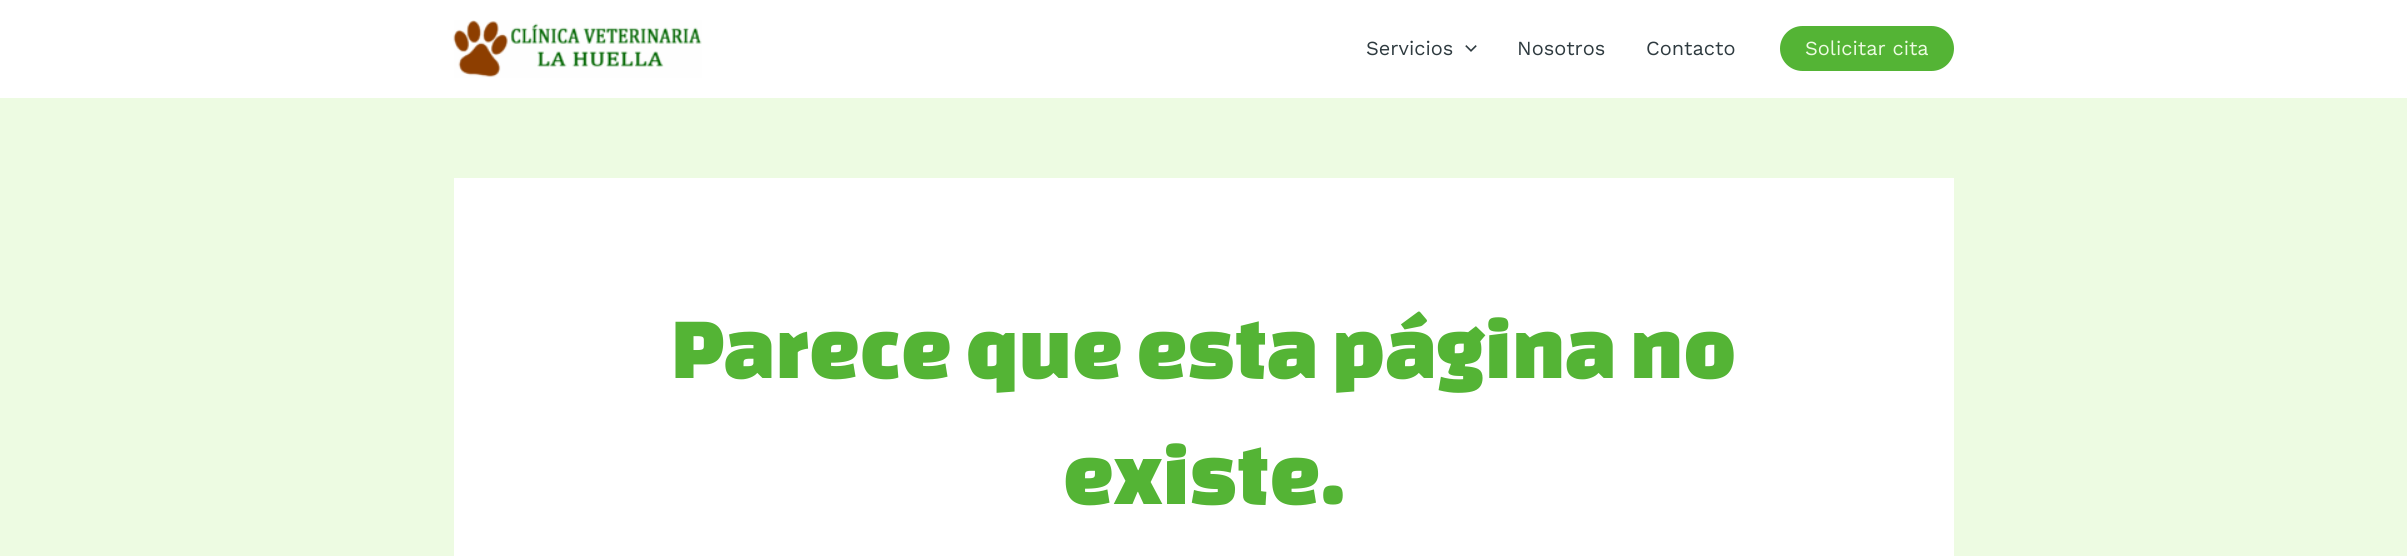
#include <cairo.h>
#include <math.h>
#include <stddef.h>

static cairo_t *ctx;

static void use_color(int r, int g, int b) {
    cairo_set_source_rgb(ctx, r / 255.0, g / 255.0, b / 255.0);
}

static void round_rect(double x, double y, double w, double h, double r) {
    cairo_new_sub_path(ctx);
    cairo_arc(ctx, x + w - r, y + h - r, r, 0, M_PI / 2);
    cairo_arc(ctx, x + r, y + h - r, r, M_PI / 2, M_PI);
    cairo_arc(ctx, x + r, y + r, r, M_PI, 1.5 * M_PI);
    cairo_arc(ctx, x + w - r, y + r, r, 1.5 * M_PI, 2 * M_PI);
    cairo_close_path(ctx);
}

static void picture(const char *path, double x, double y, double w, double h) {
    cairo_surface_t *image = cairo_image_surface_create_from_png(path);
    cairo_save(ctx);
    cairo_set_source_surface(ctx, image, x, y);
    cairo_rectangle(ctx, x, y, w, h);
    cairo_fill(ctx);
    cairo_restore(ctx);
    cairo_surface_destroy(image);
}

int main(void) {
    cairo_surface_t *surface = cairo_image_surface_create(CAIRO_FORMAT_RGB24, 2407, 556);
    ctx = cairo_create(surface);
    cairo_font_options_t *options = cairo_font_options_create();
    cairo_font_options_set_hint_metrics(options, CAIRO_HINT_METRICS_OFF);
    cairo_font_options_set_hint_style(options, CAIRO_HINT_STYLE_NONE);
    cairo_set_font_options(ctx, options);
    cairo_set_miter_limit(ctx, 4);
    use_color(237, 251, 226);
    cairo_paint(ctx);
    use_color(255, 255, 255);
    cairo_rectangle(ctx, 0, 0, 2407, 98);
    cairo_fill(ctx);
    picture("img1.png", 453, 20, 249, 58);
    cairo_select_font_face(ctx, "Work Sans", CAIRO_FONT_SLANT_NORMAL, CAIRO_FONT_WEIGHT_NORMAL);
    cairo_set_font_size(ctx, 20);
    use_color(47, 59, 64);
    cairo_move_to(ctx, 1366, 55);
    cairo_show_text(ctx, "Servicios");
    picture("img2.png", 1465, 45, 12, 7);
    cairo_move_to(ctx, 1517, 55);
    cairo_show_text(ctx, "Nosotros");
    cairo_move_to(ctx, 1646, 55);
    cairo_show_text(ctx, "Contacto");
    use_color(84, 180, 53);
    round_rect(1780, 26, 174, 45, 22.5);
    cairo_fill(ctx);
    use_color(237, 251, 226);
    cairo_move_to(ctx, 1805, 55);
    cairo_show_text(ctx, "Solicitar cita");
    use_color(255, 255, 255);
    cairo_rectangle(ctx, 454, 178, 1500, 378);
    cairo_fill(ctx);
    cairo_select_font_face(ctx, "Changa One", CAIRO_FONT_SLANT_NORMAL, CAIRO_FONT_WEIGHT_NORMAL);
    cairo_set_font_size(ctx, 90);
    use_color(84, 180, 53);
    cairo_move_to(ctx, 671, 378);
    cairo_show_text(ctx, "Parece que esta página no");
    cairo_move_to(ctx, 1063, 504);
    cairo_show_text(ctx, "existe.");
    cairo_surface_write_to_png(surface, "result.png");
    cairo_font_options_destroy(options);
    cairo_destroy(ctx);
    cairo_surface_destroy(surface);
    return 0;
}
